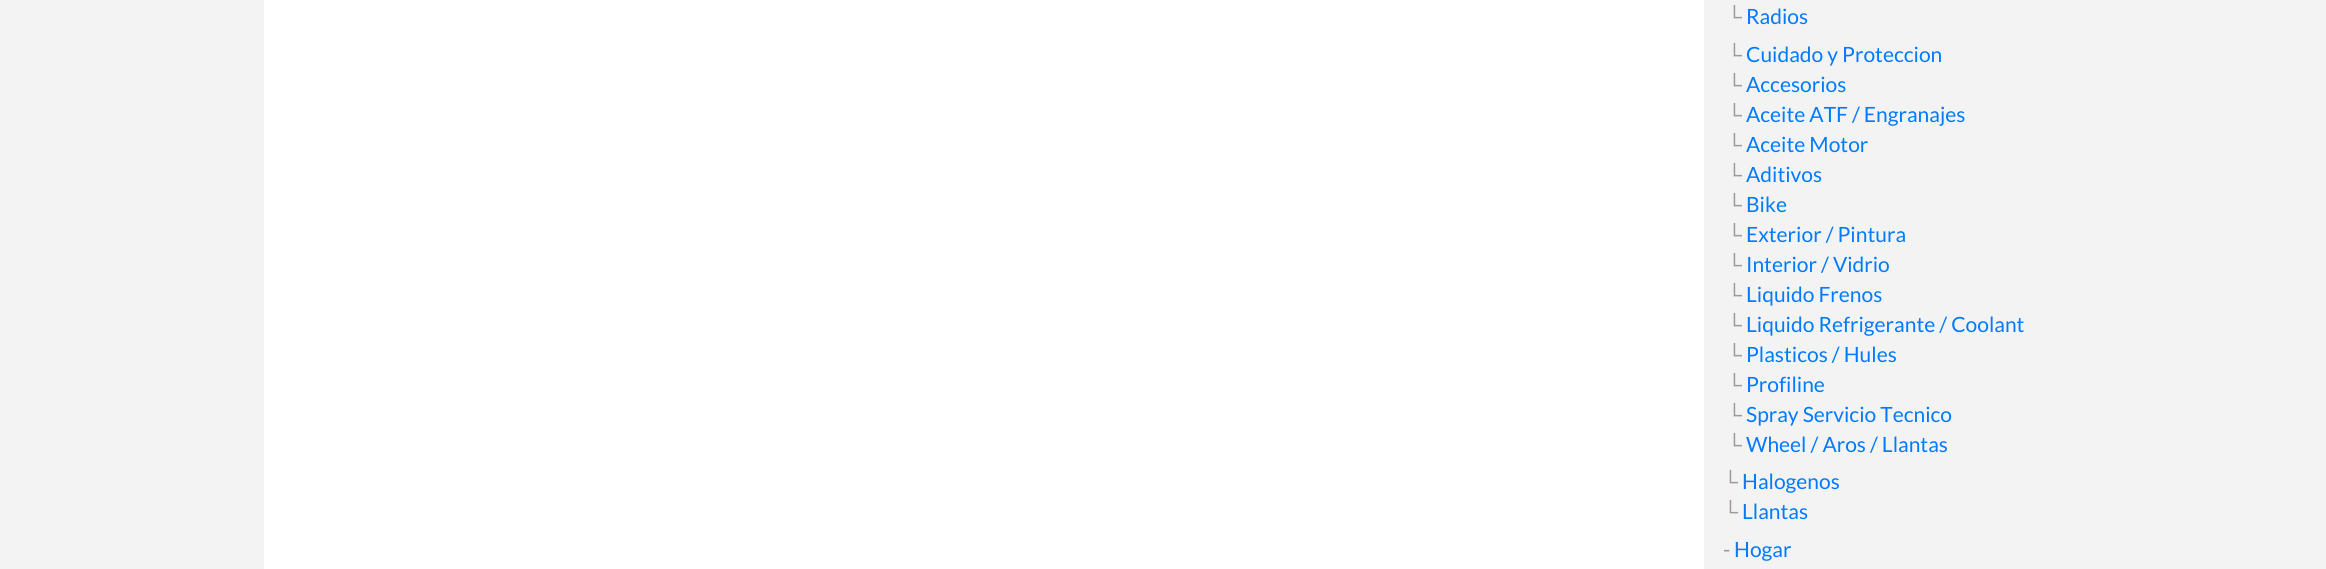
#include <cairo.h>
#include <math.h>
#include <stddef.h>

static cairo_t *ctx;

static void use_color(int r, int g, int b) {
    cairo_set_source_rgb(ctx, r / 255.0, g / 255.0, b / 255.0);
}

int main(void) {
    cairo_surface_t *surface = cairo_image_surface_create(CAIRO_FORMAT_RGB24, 2326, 569);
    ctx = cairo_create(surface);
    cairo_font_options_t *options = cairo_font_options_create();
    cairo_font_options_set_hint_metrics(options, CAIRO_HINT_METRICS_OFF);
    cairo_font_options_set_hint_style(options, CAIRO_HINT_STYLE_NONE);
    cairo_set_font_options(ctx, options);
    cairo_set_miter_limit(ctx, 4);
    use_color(243, 243, 243);
    cairo_paint(ctx);
    use_color(255, 255, 255);
    cairo_rectangle(ctx, 264, 0, 1440, 569);
    cairo_fill(ctx);
    cairo_select_font_face(ctx, "Liberation Serif", CAIRO_FONT_SLANT_NORMAL, CAIRO_FONT_WEIGHT_NORMAL);
    cairo_set_font_size(ctx, 21);
    use_color(153, 153, 153);
    cairo_move_to(ctx, 1727, 24);
    cairo_show_text(ctx, "└");
    cairo_select_font_face(ctx, "Lato", CAIRO_FONT_SLANT_NORMAL, CAIRO_FONT_WEIGHT_NORMAL);
    use_color(0, 123, 255);
    cairo_move_to(ctx, 1746, 24);
    cairo_show_text(ctx, "Radios");
    cairo_select_font_face(ctx, "Liberation Serif", CAIRO_FONT_SLANT_NORMAL, CAIRO_FONT_WEIGHT_NORMAL);
    use_color(153, 153, 153);
    cairo_move_to(ctx, 1727, 62);
    cairo_show_text(ctx, "└");
    cairo_select_font_face(ctx, "Lato", CAIRO_FONT_SLANT_NORMAL, CAIRO_FONT_WEIGHT_NORMAL);
    use_color(0, 123, 255);
    cairo_move_to(ctx, 1746, 62);
    cairo_show_text(ctx, "Cuidado y Proteccion");
    cairo_select_font_face(ctx, "Liberation Serif", CAIRO_FONT_SLANT_NORMAL, CAIRO_FONT_WEIGHT_NORMAL);
    use_color(153, 153, 153);
    cairo_move_to(ctx, 1727, 92);
    cairo_show_text(ctx, "└");
    cairo_select_font_face(ctx, "Lato", CAIRO_FONT_SLANT_NORMAL, CAIRO_FONT_WEIGHT_NORMAL);
    use_color(0, 123, 255);
    cairo_move_to(ctx, 1746, 92);
    cairo_show_text(ctx, "Accesorios");
    cairo_select_font_face(ctx, "Liberation Serif", CAIRO_FONT_SLANT_NORMAL, CAIRO_FONT_WEIGHT_NORMAL);
    use_color(153, 153, 153);
    cairo_move_to(ctx, 1727, 122);
    cairo_show_text(ctx, "└");
    cairo_select_font_face(ctx, "Lato", CAIRO_FONT_SLANT_NORMAL, CAIRO_FONT_WEIGHT_NORMAL);
    use_color(0, 123, 255);
    cairo_move_to(ctx, 1746, 122);
    cairo_show_text(ctx, "Aceite ATF / Engranajes");
    cairo_select_font_face(ctx, "Liberation Serif", CAIRO_FONT_SLANT_NORMAL, CAIRO_FONT_WEIGHT_NORMAL);
    use_color(153, 153, 153);
    cairo_move_to(ctx, 1727, 152);
    cairo_show_text(ctx, "└");
    cairo_select_font_face(ctx, "Lato", CAIRO_FONT_SLANT_NORMAL, CAIRO_FONT_WEIGHT_NORMAL);
    use_color(0, 123, 255);
    cairo_move_to(ctx, 1746, 152);
    cairo_show_text(ctx, "Aceite Motor");
    cairo_select_font_face(ctx, "Liberation Serif", CAIRO_FONT_SLANT_NORMAL, CAIRO_FONT_WEIGHT_NORMAL);
    use_color(153, 153, 153);
    cairo_move_to(ctx, 1727, 182);
    cairo_show_text(ctx, "└");
    cairo_select_font_face(ctx, "Lato", CAIRO_FONT_SLANT_NORMAL, CAIRO_FONT_WEIGHT_NORMAL);
    use_color(0, 123, 255);
    cairo_move_to(ctx, 1746, 182);
    cairo_show_text(ctx, "Aditivos");
    cairo_select_font_face(ctx, "Liberation Serif", CAIRO_FONT_SLANT_NORMAL, CAIRO_FONT_WEIGHT_NORMAL);
    use_color(153, 153, 153);
    cairo_move_to(ctx, 1727, 212);
    cairo_show_text(ctx, "└");
    cairo_select_font_face(ctx, "Lato", CAIRO_FONT_SLANT_NORMAL, CAIRO_FONT_WEIGHT_NORMAL);
    use_color(0, 123, 255);
    cairo_move_to(ctx, 1746, 212);
    cairo_show_text(ctx, "Bike");
    cairo_select_font_face(ctx, "Liberation Serif", CAIRO_FONT_SLANT_NORMAL, CAIRO_FONT_WEIGHT_NORMAL);
    use_color(153, 153, 153);
    cairo_move_to(ctx, 1727, 242);
    cairo_show_text(ctx, "└");
    cairo_select_font_face(ctx, "Lato", CAIRO_FONT_SLANT_NORMAL, CAIRO_FONT_WEIGHT_NORMAL);
    use_color(0, 123, 255);
    cairo_move_to(ctx, 1746, 242);
    cairo_show_text(ctx, "Exterior / Pintura");
    cairo_select_font_face(ctx, "Liberation Serif", CAIRO_FONT_SLANT_NORMAL, CAIRO_FONT_WEIGHT_NORMAL);
    use_color(153, 153, 153);
    cairo_move_to(ctx, 1727, 272);
    cairo_show_text(ctx, "└");
    cairo_select_font_face(ctx, "Lato", CAIRO_FONT_SLANT_NORMAL, CAIRO_FONT_WEIGHT_NORMAL);
    use_color(0, 123, 255);
    cairo_move_to(ctx, 1746, 272);
    cairo_show_text(ctx, "Interior / Vidrio");
    cairo_select_font_face(ctx, "Liberation Serif", CAIRO_FONT_SLANT_NORMAL, CAIRO_FONT_WEIGHT_NORMAL);
    use_color(153, 153, 153);
    cairo_move_to(ctx, 1727, 302);
    cairo_show_text(ctx, "└");
    cairo_select_font_face(ctx, "Lato", CAIRO_FONT_SLANT_NORMAL, CAIRO_FONT_WEIGHT_NORMAL);
    use_color(0, 123, 255);
    cairo_move_to(ctx, 1746, 302);
    cairo_show_text(ctx, "Liquido Frenos");
    cairo_select_font_face(ctx, "Liberation Serif", CAIRO_FONT_SLANT_NORMAL, CAIRO_FONT_WEIGHT_NORMAL);
    use_color(153, 153, 153);
    cairo_move_to(ctx, 1727, 332);
    cairo_show_text(ctx, "└");
    cairo_select_font_face(ctx, "Lato", CAIRO_FONT_SLANT_NORMAL, CAIRO_FONT_WEIGHT_NORMAL);
    use_color(0, 123, 255);
    cairo_move_to(ctx, 1746, 332);
    cairo_show_text(ctx, "Liquido Refrigerante / Coolant");
    cairo_select_font_face(ctx, "Liberation Serif", CAIRO_FONT_SLANT_NORMAL, CAIRO_FONT_WEIGHT_NORMAL);
    use_color(153, 153, 153);
    cairo_move_to(ctx, 1727, 362);
    cairo_show_text(ctx, "└");
    cairo_select_font_face(ctx, "Lato", CAIRO_FONT_SLANT_NORMAL, CAIRO_FONT_WEIGHT_NORMAL);
    use_color(0, 123, 255);
    cairo_move_to(ctx, 1746, 362);
    cairo_show_text(ctx, "Plasticos / Hules");
    cairo_select_font_face(ctx, "Liberation Serif", CAIRO_FONT_SLANT_NORMAL, CAIRO_FONT_WEIGHT_NORMAL);
    use_color(153, 153, 153);
    cairo_move_to(ctx, 1727, 392);
    cairo_show_text(ctx, "└");
    cairo_select_font_face(ctx, "Lato", CAIRO_FONT_SLANT_NORMAL, CAIRO_FONT_WEIGHT_NORMAL);
    use_color(0, 123, 255);
    cairo_move_to(ctx, 1746, 392);
    cairo_show_text(ctx, "Profiline");
    cairo_select_font_face(ctx, "Liberation Serif", CAIRO_FONT_SLANT_NORMAL, CAIRO_FONT_WEIGHT_NORMAL);
    use_color(153, 153, 153);
    cairo_move_to(ctx, 1727, 422);
    cairo_show_text(ctx, "└");
    cairo_select_font_face(ctx, "Lato", CAIRO_FONT_SLANT_NORMAL, CAIRO_FONT_WEIGHT_NORMAL);
    use_color(0, 123, 255);
    cairo_move_to(ctx, 1746, 422);
    cairo_show_text(ctx, "Spray Servicio Tecnico");
    cairo_select_font_face(ctx, "Liberation Serif", CAIRO_FONT_SLANT_NORMAL, CAIRO_FONT_WEIGHT_NORMAL);
    use_color(153, 153, 153);
    cairo_move_to(ctx, 1727, 452);
    cairo_show_text(ctx, "└");
    cairo_select_font_face(ctx, "Lato", CAIRO_FONT_SLANT_NORMAL, CAIRO_FONT_WEIGHT_NORMAL);
    use_color(0, 123, 255);
    cairo_move_to(ctx, 1746, 452);
    cairo_show_text(ctx, "Wheel / Aros / Llantas");
    cairo_select_font_face(ctx, "Liberation Serif", CAIRO_FONT_SLANT_NORMAL, CAIRO_FONT_WEIGHT_NORMAL);
    use_color(153, 153, 153);
    cairo_move_to(ctx, 1723, 489);
    cairo_show_text(ctx, "└");
    cairo_select_font_face(ctx, "Lato", CAIRO_FONT_SLANT_NORMAL, CAIRO_FONT_WEIGHT_NORMAL);
    use_color(0, 123, 255);
    cairo_move_to(ctx, 1742, 489);
    cairo_show_text(ctx, "Halogenos");
    cairo_select_font_face(ctx, "Liberation Serif", CAIRO_FONT_SLANT_NORMAL, CAIRO_FONT_WEIGHT_NORMAL);
    use_color(153, 153, 153);
    cairo_move_to(ctx, 1723, 519);
    cairo_show_text(ctx, "└");
    cairo_select_font_face(ctx, "Lato", CAIRO_FONT_SLANT_NORMAL, CAIRO_FONT_WEIGHT_NORMAL);
    use_color(0, 123, 255);
    cairo_move_to(ctx, 1742, 519);
    cairo_show_text(ctx, "Llantas");
    use_color(153, 153, 153);
    cairo_move_to(ctx, 1723, 557);
    cairo_show_text(ctx, "-");
    use_color(0, 123, 255);
    cairo_move_to(ctx, 1734, 557);
    cairo_show_text(ctx, "Hogar");
    cairo_surface_write_to_png(surface, "result.png");
    cairo_font_options_destroy(options);
    cairo_destroy(ctx);
    cairo_surface_destroy(surface);
    return 0;
}
